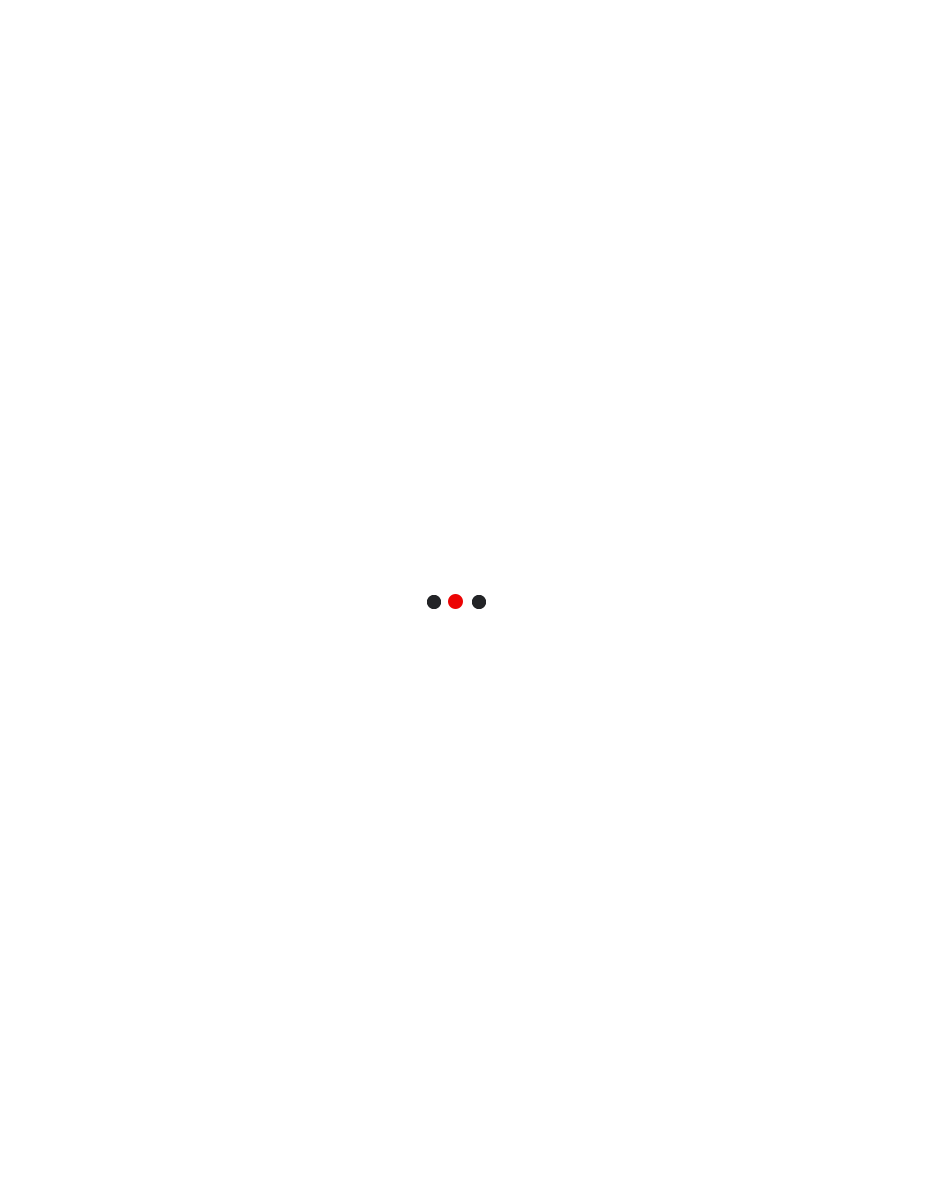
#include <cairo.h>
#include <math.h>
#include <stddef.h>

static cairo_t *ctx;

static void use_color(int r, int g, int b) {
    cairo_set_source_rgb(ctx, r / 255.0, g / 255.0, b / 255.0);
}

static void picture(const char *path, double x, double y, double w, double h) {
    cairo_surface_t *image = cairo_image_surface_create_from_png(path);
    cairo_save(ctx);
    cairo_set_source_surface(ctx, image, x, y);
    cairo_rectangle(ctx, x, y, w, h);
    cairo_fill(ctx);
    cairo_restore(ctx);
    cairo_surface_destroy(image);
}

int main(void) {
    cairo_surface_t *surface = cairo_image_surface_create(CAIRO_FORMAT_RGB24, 951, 1202);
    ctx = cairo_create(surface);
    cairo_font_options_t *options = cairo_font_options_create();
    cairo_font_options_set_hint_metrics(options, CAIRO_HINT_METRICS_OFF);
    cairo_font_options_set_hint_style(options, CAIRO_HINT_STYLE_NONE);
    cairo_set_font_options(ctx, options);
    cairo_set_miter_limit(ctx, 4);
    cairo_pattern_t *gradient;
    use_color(255, 255, 255);
    cairo_paint(ctx);
    picture("img1.png", 904, 87, 14, 15);
    gradient = cairo_pattern_create_radial(479, 602, 0, 479, 602, 7.5);
    cairo_pattern_add_color_stop_rgba(gradient, 0.9, 0.137, 0.141, 0.153, 1);
    cairo_pattern_add_color_stop_rgba(gradient, 1, 1, 1, 1, 1);
    cairo_set_source(ctx, gradient);
    cairo_pattern_destroy(gradient);
    cairo_rectangle(ctx, 472, 595, 14, 14);
    cairo_fill(ctx);
    gradient = cairo_pattern_create_radial(434, 602, 0, 434, 602, 7.5);
    cairo_pattern_add_color_stop_rgba(gradient, 0.9, 0.137, 0.141, 0.153, 1);
    cairo_pattern_add_color_stop_rgba(gradient, 1, 1, 1, 1, 1);
    cairo_set_source(ctx, gradient);
    cairo_pattern_destroy(gradient);
    cairo_rectangle(ctx, 427, 595, 14, 14);
    cairo_fill(ctx);
    use_color(236, 4, 4);
    cairo_arc(ctx, 455.5, 601.5, 7.5, 0, 2 * M_PI);
    cairo_fill(ctx);
    cairo_surface_write_to_png(surface, "result.png");
    cairo_font_options_destroy(options);
    cairo_destroy(ctx);
    cairo_surface_destroy(surface);
    return 0;
}
